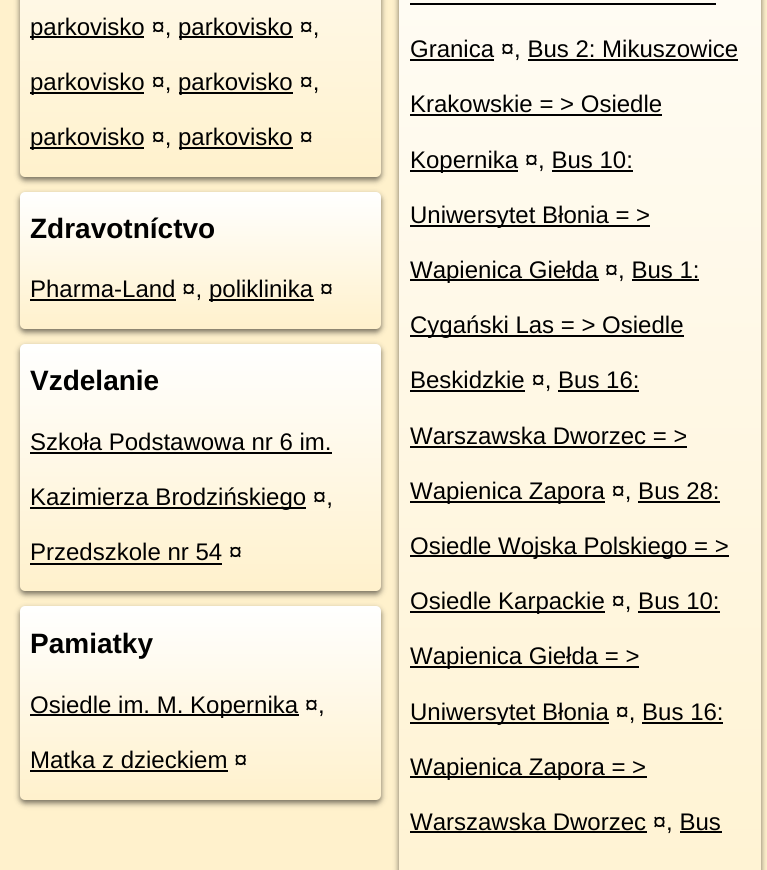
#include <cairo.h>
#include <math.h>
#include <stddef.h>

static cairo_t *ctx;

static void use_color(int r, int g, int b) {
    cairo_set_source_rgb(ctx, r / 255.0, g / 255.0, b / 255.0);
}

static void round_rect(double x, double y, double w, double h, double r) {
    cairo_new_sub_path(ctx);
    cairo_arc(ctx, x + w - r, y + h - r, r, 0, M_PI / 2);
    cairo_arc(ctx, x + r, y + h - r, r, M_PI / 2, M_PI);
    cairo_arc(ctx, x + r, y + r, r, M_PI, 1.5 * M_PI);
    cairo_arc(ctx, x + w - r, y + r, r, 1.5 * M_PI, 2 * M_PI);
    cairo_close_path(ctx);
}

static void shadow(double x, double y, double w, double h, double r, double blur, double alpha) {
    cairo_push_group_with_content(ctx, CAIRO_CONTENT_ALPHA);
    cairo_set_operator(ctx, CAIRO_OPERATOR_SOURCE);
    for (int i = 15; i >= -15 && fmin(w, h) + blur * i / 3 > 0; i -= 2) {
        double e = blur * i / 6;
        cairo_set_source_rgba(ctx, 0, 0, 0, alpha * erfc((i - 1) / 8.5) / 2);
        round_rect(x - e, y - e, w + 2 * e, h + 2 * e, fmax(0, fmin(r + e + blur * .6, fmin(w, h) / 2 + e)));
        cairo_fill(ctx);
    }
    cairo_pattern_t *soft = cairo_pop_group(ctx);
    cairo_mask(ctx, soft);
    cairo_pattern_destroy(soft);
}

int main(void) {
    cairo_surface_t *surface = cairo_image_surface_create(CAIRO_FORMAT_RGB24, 767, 870);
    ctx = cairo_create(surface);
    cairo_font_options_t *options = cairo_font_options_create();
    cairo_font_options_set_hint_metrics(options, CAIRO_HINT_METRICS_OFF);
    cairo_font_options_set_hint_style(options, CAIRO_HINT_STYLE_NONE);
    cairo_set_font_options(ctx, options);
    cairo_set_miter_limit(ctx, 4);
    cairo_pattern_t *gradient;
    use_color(255, 241, 204);
    cairo_paint(ctx);
    use_color(0, 0, 0);
    shadow(20, -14, 361, 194, 5, 3, 0.55);
    gradient = cairo_pattern_create_linear(200, -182, 200, 177);
    cairo_pattern_add_color_stop_rgba(gradient, 0, 1, 1, 1, 1);
    cairo_pattern_add_color_stop_rgba(gradient, 1, 1, 0.945, 0.8, 1);
    cairo_set_source(ctx, gradient);
    cairo_pattern_destroy(gradient);
    round_rect(20, -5, 361, 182, 5);
    cairo_fill(ctx);
    use_color(0, 0, 0);
    cairo_rectangle(ctx, 30, 36, 114, 2);
    cairo_fill(ctx);
    cairo_select_font_face(ctx, "Liberation Sans", CAIRO_FONT_SLANT_NORMAL, CAIRO_FONT_WEIGHT_NORMAL);
    cairo_set_font_size(ctx, 24);
    cairo_move_to(ctx, 30, 35);
    cairo_show_text(ctx, "parkovisko ¤,");
    cairo_rectangle(ctx, 179, 36, 114, 2);
    cairo_fill(ctx);
    cairo_move_to(ctx, 178, 35);
    cairo_show_text(ctx, "parkovisko ¤,");
    cairo_rectangle(ctx, 30, 92, 114, 2);
    cairo_fill(ctx);
    cairo_move_to(ctx, 30, 90);
    cairo_show_text(ctx, "parkovisko ¤,");
    cairo_rectangle(ctx, 179, 92, 114, 2);
    cairo_fill(ctx);
    cairo_move_to(ctx, 178, 90);
    cairo_show_text(ctx, "parkovisko ¤,");
    cairo_rectangle(ctx, 30, 147, 114, 2);
    cairo_fill(ctx);
    cairo_move_to(ctx, 30, 145);
    cairo_show_text(ctx, "parkovisko ¤,");
    cairo_rectangle(ctx, 179, 147, 114, 2);
    cairo_fill(ctx);
    cairo_move_to(ctx, 178, 145);
    cairo_show_text(ctx, "parkovisko ¤");
    use_color(0, 0, 0);
    shadow(399, -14, 362, 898, 5, 3, 0.55);
    gradient = cairo_pattern_create_linear(580, -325, 580, 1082);
    cairo_pattern_add_color_stop_rgba(gradient, 0, 1, 1, 1, 1);
    cairo_pattern_add_color_stop_rgba(gradient, 1, 1, 0.945, 0.8, 1);
    cairo_set_source(ctx, gradient);
    cairo_pattern_destroy(gradient);
    cairo_rectangle(ctx, 399, 0, 362, 870);
    cairo_fill(ctx);
    use_color(0, 0, 0);
    cairo_rectangle(ctx, 410, 59, 84, 2);
    cairo_fill(ctx);
    cairo_move_to(ctx, 410, 57);
    cairo_show_text(ctx, "Granica ¤, Bus 2: Mikuszowice");
    cairo_rectangle(ctx, 410, 3, 306, 2);
    cairo_fill(ctx);
    cairo_move_to(ctx, 410, 112);
    cairo_show_text(ctx, "Krakowskie = > Osiedle");
    cairo_rectangle(ctx, 528, 59, 210, 2);
    cairo_fill(ctx);
    cairo_rectangle(ctx, 410, 114, 252, 2);
    cairo_fill(ctx);
    cairo_rectangle(ctx, 410, 170, 108, 2);
    cairo_fill(ctx);
    cairo_move_to(ctx, 410, 168);
    cairo_show_text(ctx, "Kopernika ¤, Bus 10:");
    cairo_rectangle(ctx, 410, 225, 240, 2);
    cairo_fill(ctx);
    cairo_move_to(ctx, 410, 223);
    cairo_show_text(ctx, "Uniwersytet Błonia = >");
    cairo_rectangle(ctx, 552, 170, 81, 2);
    cairo_fill(ctx);
    cairo_rectangle(ctx, 410, 279, 189, 2);
    cairo_fill(ctx);
    cairo_move_to(ctx, 410, 278);
    cairo_show_text(ctx, "Wapienica Giełda ¤, Bus 1:");
    cairo_rectangle(ctx, 410, 335, 274, 2);
    cairo_fill(ctx);
    cairo_move_to(ctx, 410, 333);
    cairo_show_text(ctx, "Cygański Las = > Osiedle");
    cairo_rectangle(ctx, 632, 279, 67, 2);
    cairo_fill(ctx);
    cairo_rectangle(ctx, 410, 390, 115, 2);
    cairo_fill(ctx);
    cairo_move_to(ctx, 410, 388);
    cairo_show_text(ctx, "Beskidzkie ¤, Bus 16:");
    cairo_move_to(ctx, 410, 444);
    cairo_show_text(ctx, "Warszawska Dworzec = >");
    cairo_rectangle(ctx, 558, 390, 81, 2);
    cairo_fill(ctx);
    cairo_rectangle(ctx, 410, 446, 277, 2);
    cairo_fill(ctx);
    cairo_rectangle(ctx, 410, 501, 195, 2);
    cairo_fill(ctx);
    cairo_move_to(ctx, 410, 499);
    cairo_show_text(ctx, "Wapienica Zapora ¤, Bus 28:");
    cairo_rectangle(ctx, 410, 555, 319, 2);
    cairo_fill(ctx);
    cairo_move_to(ctx, 410, 554);
    cairo_show_text(ctx, "Osiedle Wojska Polskiego = >");
    cairo_rectangle(ctx, 638, 501, 82, 2);
    cairo_fill(ctx);
    cairo_rectangle(ctx, 410, 611, 195, 2);
    cairo_fill(ctx);
    cairo_move_to(ctx, 410, 609);
    cairo_show_text(ctx, "Osiedle Karpackie ¤, Bus 10:");
    cairo_rectangle(ctx, 410, 666, 229, 2);
    cairo_fill(ctx);
    cairo_move_to(ctx, 410, 664);
    cairo_show_text(ctx, "Wapienica Giełda = >");
    cairo_rectangle(ctx, 638, 611, 82, 2);
    cairo_fill(ctx);
    cairo_rectangle(ctx, 410, 722, 199, 2);
    cairo_fill(ctx);
    cairo_move_to(ctx, 410, 720);
    cairo_show_text(ctx, "Uniwersytet Błonia ¤, Bus 16:");
    cairo_rectangle(ctx, 410, 776, 237, 2);
    cairo_fill(ctx);
    cairo_move_to(ctx, 410, 775);
    cairo_show_text(ctx, "Wapienica Zapora = >");
    cairo_rectangle(ctx, 642, 722, 81, 2);
    cairo_fill(ctx);
    cairo_rectangle(ctx, 410, 831, 237, 2);
    cairo_fill(ctx);
    cairo_move_to(ctx, 410, 830);
    cairo_show_text(ctx, "Warszawska Dworzec ¤, Bus");
    cairo_rectangle(ctx, 680, 831, 42, 2);
    cairo_fill(ctx);
    use_color(0, 0, 0);
    shadow(20, 195, 361, 137, 5, 3, 0.55);
    gradient = cairo_pattern_create_linear(200, 192, 200, 329);
    cairo_pattern_add_color_stop_rgba(gradient, 0, 1, 1, 1, 1);
    cairo_pattern_add_color_stop_rgba(gradient, 1, 1, 0.945, 0.8, 1);
    cairo_set_source(ctx, gradient);
    cairo_pattern_destroy(gradient);
    round_rect(20, 192, 361, 137, 5);
    cairo_fill(ctx);
    cairo_select_font_face(ctx, "Liberation Sans", CAIRO_FONT_SLANT_NORMAL, CAIRO_FONT_WEIGHT_BOLD);
    cairo_set_font_size(ctx, 28);
    use_color(0, 0, 0);
    cairo_move_to(ctx, 30, 238);
    cairo_show_text(ctx, "Zdravotníctvo");
    cairo_rectangle(ctx, 30, 299, 146, 2);
    cairo_fill(ctx);
    cairo_select_font_face(ctx, "Liberation Sans", CAIRO_FONT_SLANT_NORMAL, CAIRO_FONT_WEIGHT_NORMAL);
    cairo_set_font_size(ctx, 24);
    cairo_move_to(ctx, 30, 297);
    cairo_show_text(ctx, "Pharma-Land ¤,");
    cairo_rectangle(ctx, 209, 299, 105, 2);
    cairo_fill(ctx);
    cairo_move_to(ctx, 209, 297);
    cairo_show_text(ctx, "poliklinika ¤");
    use_color(0, 0, 0);
    shadow(20, 347, 361, 247, 5, 3, 0.55);
    gradient = cairo_pattern_create_linear(200, 344, 200, 591);
    cairo_pattern_add_color_stop_rgba(gradient, 0, 1, 1, 1, 1);
    cairo_pattern_add_color_stop_rgba(gradient, 1, 1, 0.945, 0.8, 1);
    cairo_set_source(ctx, gradient);
    cairo_pattern_destroy(gradient);
    round_rect(20, 344, 361, 247, 5);
    cairo_fill(ctx);
    cairo_select_font_face(ctx, "Liberation Sans", CAIRO_FONT_SLANT_NORMAL, CAIRO_FONT_WEIGHT_BOLD);
    cairo_set_font_size(ctx, 28);
    use_color(0, 0, 0);
    cairo_move_to(ctx, 30, 390);
    cairo_show_text(ctx, "Vzdelanie");
    cairo_select_font_face(ctx, "Liberation Sans", CAIRO_FONT_SLANT_NORMAL, CAIRO_FONT_WEIGHT_NORMAL);
    cairo_set_font_size(ctx, 24);
    cairo_move_to(ctx, 30, 450);
    cairo_show_text(ctx, "Szkoła Podstawowa nr 6 im.");
    cairo_rectangle(ctx, 30, 452, 302, 2);
    cairo_fill(ctx);
    cairo_rectangle(ctx, 30, 507, 276, 2);
    cairo_fill(ctx);
    cairo_move_to(ctx, 30, 505);
    cairo_show_text(ctx, "Kazimierza Brodzińskiego ¤,");
    cairo_move_to(ctx, 30, 560);
    cairo_show_text(ctx, "Przedszkole nr 54 ¤");
    cairo_rectangle(ctx, 30, 563, 192, 2);
    cairo_fill(ctx);
    use_color(0, 0, 0);
    shadow(20, 609, 361, 194, 5, 3, 0.55);
    gradient = cairo_pattern_create_linear(200, 606, 200, 800);
    cairo_pattern_add_color_stop_rgba(gradient, 0, 1, 1, 1, 1);
    cairo_pattern_add_color_stop_rgba(gradient, 1, 1, 0.945, 0.8, 1);
    cairo_set_source(ctx, gradient);
    cairo_pattern_destroy(gradient);
    round_rect(20, 606, 361, 194, 5);
    cairo_fill(ctx);
    cairo_select_font_face(ctx, "Liberation Sans", CAIRO_FONT_SLANT_NORMAL, CAIRO_FONT_WEIGHT_BOLD);
    cairo_set_font_size(ctx, 28);
    use_color(0, 0, 0);
    cairo_move_to(ctx, 30, 653);
    cairo_show_text(ctx, "Pamiatky");
    cairo_rectangle(ctx, 30, 714, 269, 2);
    cairo_fill(ctx);
    cairo_select_font_face(ctx, "Liberation Sans", CAIRO_FONT_SLANT_NORMAL, CAIRO_FONT_WEIGHT_NORMAL);
    cairo_set_font_size(ctx, 24);
    cairo_move_to(ctx, 30, 713);
    cairo_show_text(ctx, "Osiedle im. M. Kopernika ¤,");
    cairo_move_to(ctx, 30, 768);
    cairo_show_text(ctx, "Matka z dzieckiem ¤");
    cairo_rectangle(ctx, 30, 770, 198, 2);
    cairo_fill(ctx);
    cairo_surface_write_to_png(surface, "result.png");
    cairo_font_options_destroy(options);
    cairo_destroy(ctx);
    cairo_surface_destroy(surface);
    return 0;
}
